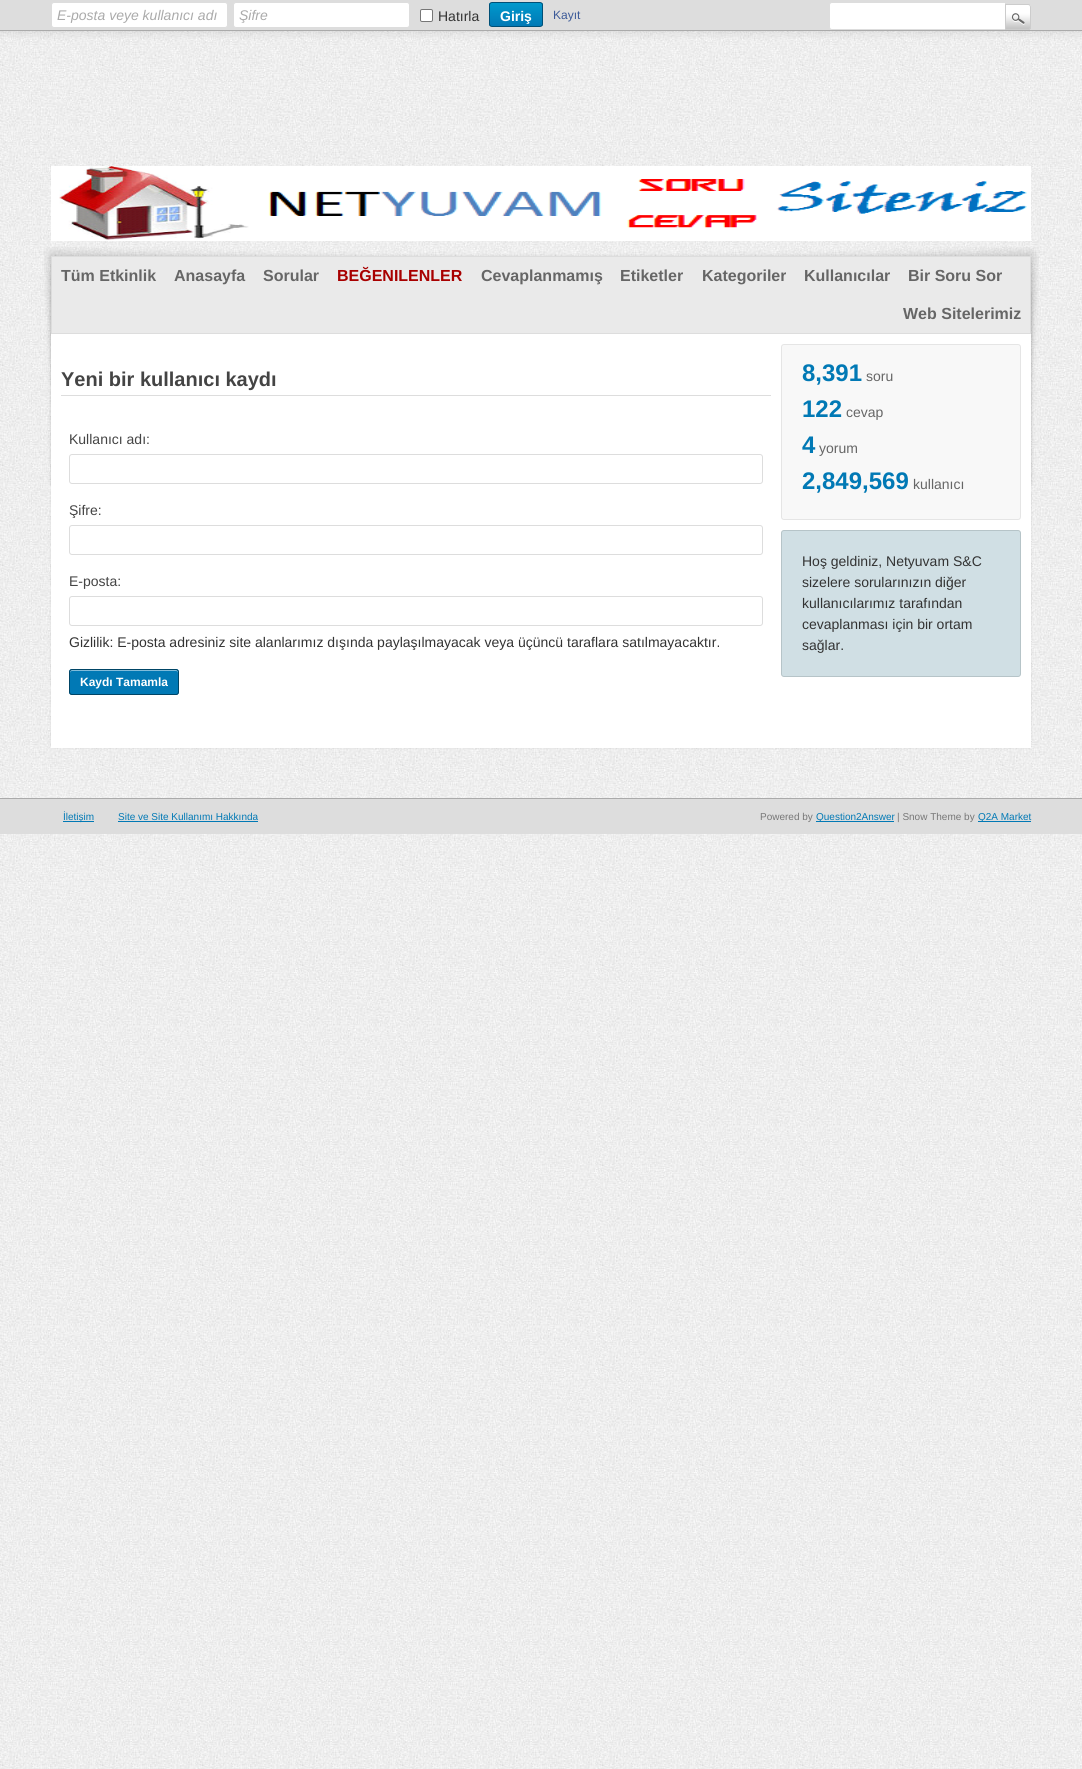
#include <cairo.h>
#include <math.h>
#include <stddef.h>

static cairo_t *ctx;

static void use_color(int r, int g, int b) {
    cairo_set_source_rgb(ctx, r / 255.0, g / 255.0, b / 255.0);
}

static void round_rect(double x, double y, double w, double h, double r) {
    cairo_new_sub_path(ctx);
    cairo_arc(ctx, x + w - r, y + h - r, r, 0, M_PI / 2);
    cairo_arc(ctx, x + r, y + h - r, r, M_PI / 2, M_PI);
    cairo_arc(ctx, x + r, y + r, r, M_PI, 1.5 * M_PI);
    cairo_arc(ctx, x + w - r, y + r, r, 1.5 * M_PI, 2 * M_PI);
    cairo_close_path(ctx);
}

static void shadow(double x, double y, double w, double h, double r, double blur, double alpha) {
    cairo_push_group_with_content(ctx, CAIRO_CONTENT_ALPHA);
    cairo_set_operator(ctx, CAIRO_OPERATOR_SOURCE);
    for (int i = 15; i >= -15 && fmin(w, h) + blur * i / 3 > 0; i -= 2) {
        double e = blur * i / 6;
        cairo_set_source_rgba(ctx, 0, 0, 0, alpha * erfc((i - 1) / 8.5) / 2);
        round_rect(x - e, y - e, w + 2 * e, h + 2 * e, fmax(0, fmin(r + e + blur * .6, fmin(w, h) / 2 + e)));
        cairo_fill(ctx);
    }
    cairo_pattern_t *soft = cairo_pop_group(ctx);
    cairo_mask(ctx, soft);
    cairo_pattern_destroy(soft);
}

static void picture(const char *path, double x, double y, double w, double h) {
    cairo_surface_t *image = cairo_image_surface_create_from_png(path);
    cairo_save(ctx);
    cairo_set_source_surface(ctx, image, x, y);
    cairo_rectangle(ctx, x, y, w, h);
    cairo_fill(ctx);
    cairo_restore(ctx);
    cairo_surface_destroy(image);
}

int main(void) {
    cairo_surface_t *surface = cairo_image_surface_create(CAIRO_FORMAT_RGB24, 1082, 1769);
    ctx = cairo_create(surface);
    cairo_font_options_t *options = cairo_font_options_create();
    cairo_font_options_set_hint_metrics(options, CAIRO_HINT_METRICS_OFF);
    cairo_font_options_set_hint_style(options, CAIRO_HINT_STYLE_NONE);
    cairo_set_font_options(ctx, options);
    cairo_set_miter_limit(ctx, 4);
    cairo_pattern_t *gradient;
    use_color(255, 255, 255);
    cairo_paint(ctx);
    picture("img1.png", 0, 31, 1082, 1738);
    use_color(0, 0, 0);
    shadow(0, 0, 1082, 31, 0, 5, 0.15);
    use_color(221, 221, 221);
    cairo_rectangle(ctx, 0, 0, 1082, 30);
    cairo_fill(ctx);
    use_color(170, 170, 170);
    cairo_rectangle(ctx, 0, 30, 1082, 1);
    cairo_fill(ctx);
    use_color(255, 255, 255);
    round_rect(51.5, 2.5, 176, 25, 2.5);
    cairo_fill_preserve(ctx);
    use_color(221, 221, 221);
    cairo_set_line_width(ctx, 1);
    cairo_stroke(ctx);
    cairo_select_font_face(ctx, "Liberation Sans", CAIRO_FONT_SLANT_ITALIC, CAIRO_FONT_WEIGHT_NORMAL);
    cairo_set_font_size(ctx, 14);
    use_color(170, 170, 170);
    cairo_move_to(ctx, 57, 20);
    cairo_show_text(ctx, "E-posta veye kullanıcı adı");
    use_color(255, 255, 255);
    round_rect(233.5, 2.5, 176, 25, 2.5);
    cairo_fill_preserve(ctx);
    use_color(221, 221, 221);
    cairo_stroke(ctx);
    use_color(170, 170, 170);
    cairo_move_to(ctx, 239, 20);
    cairo_show_text(ctx, "Şifre");
    use_color(255, 255, 255);
    round_rect(420.5, 9.5, 12, 12, 1.5);
    cairo_fill_preserve(ctx);
    use_color(118, 118, 118);
    cairo_stroke(ctx);
    cairo_select_font_face(ctx, "Liberation Sans", CAIRO_FONT_SLANT_NORMAL, CAIRO_FONT_WEIGHT_NORMAL);
    use_color(51, 51, 51);
    cairo_move_to(ctx, 438, 21);
    cairo_show_text(ctx, "Hatırla");
    cairo_save(ctx);
    round_rect(489, 2, 54, 25, 3);
    cairo_clip(ctx);
    gradient = cairo_pattern_create_linear(516, 3, 516, 26);
    cairo_pattern_add_color_stop_rgba(gradient, 0, 0, 0.6, 0.8, 1);
    cairo_pattern_add_color_stop_rgba(gradient, 1, 0.004, 0.475, 0.71, 1);
    cairo_set_source(ctx, gradient);
    cairo_pattern_destroy(gradient);
    cairo_rectangle(ctx, 489, 3, 54, 23);
    cairo_fill(ctx);
    cairo_restore(ctx);
    round_rect(489.5, 2.5, 53, 24, 2.5);
    use_color(0, 79, 118);
    cairo_stroke(ctx);
    cairo_select_font_face(ctx, "Liberation Sans", CAIRO_FONT_SLANT_NORMAL, CAIRO_FONT_WEIGHT_BOLD);
    use_color(255, 255, 255);
    cairo_move_to(ctx, 500, 21);
    cairo_show_text(ctx, "Giriş");
    cairo_select_font_face(ctx, "Liberation Sans", CAIRO_FONT_SLANT_NORMAL, CAIRO_FONT_WEIGHT_NORMAL);
    cairo_set_font_size(ctx, 12);
    use_color(59, 89, 152);
    cairo_move_to(ctx, 553, 19);
    cairo_show_text(ctx, "Kayıt");
    use_color(255, 255, 255);
    cairo_new_path(ctx);
    cairo_move_to(ctx, 832, 2.5);
    cairo_line_to(ctx, 1005.5, 2.5);
    cairo_line_to(ctx, 1005.5, 29.5);
    cairo_line_to(ctx, 832, 29.5);
    cairo_curve_to(ctx, 830.5, 29.5, 829.5, 28.5, 829.5, 27);
    cairo_line_to(ctx, 829.5, 5);
    cairo_curve_to(ctx, 829.5, 3.5, 830.5, 2.5, 832, 2.5);
    cairo_close_path(ctx);
    cairo_fill_preserve(ctx);
    use_color(221, 221, 221);
    cairo_stroke(ctx);
    picture("img2.png", 1006, 5, 25, 25);
    cairo_new_path(ctx);
    cairo_move_to(ctx, 1005.5, 4.5);
    cairo_line_to(ctx, 1028, 4.5);
    cairo_curve_to(ctx, 1029.5, 4.5, 1030.5, 5.5, 1030.5, 7);
    cairo_line_to(ctx, 1030.5, 27);
    cairo_curve_to(ctx, 1030.5, 28.5, 1029.5, 29.5, 1028, 29.5);
    cairo_line_to(ctx, 1005.5, 29.5);
    cairo_close_path(ctx);
    use_color(204, 204, 204);
    cairo_stroke(ctx);
    picture("img3.png", 51, 166, 980, 75);
    picture("img4.png", 44, 247, 995, 239);
    use_color(0, 0, 0);
    shadow(51, 256, 980, 492, 0, 1, 0.1);
    use_color(255, 255, 255);
    cairo_rectangle(ctx, 51, 334, 980, 414);
    cairo_fill(ctx);
    use_color(234, 234, 234);
    cairo_rectangle(ctx, 51.5, 256.5, 979, 77);
    cairo_fill_preserve(ctx);
    use_color(221, 221, 221);
    cairo_stroke(ctx);
    cairo_select_font_face(ctx, "Liberation Sans", CAIRO_FONT_SLANT_NORMAL, CAIRO_FONT_WEIGHT_BOLD);
    cairo_set_font_size(ctx, 16);
    use_color(102, 102, 102);
    cairo_move_to(ctx, 61, 281);
    cairo_show_text(ctx, "Tüm Etkinlik");
    cairo_move_to(ctx, 174, 281);
    cairo_show_text(ctx, "Anasayfa");
    cairo_move_to(ctx, 263, 281);
    cairo_show_text(ctx, "Sorular");
    use_color(168, 0, 0);
    cairo_move_to(ctx, 337, 281);
    cairo_show_text(ctx, "BEĞENILENLER");
    use_color(102, 102, 102);
    cairo_move_to(ctx, 481, 281);
    cairo_show_text(ctx, "Cevaplanmamış");
    cairo_move_to(ctx, 620, 281);
    cairo_show_text(ctx, "Etiketler");
    cairo_move_to(ctx, 702, 281);
    cairo_show_text(ctx, "Kategoriler");
    cairo_move_to(ctx, 804, 281);
    cairo_show_text(ctx, "Kullanıcılar");
    cairo_move_to(ctx, 908, 281);
    cairo_show_text(ctx, "Bir Soru Sor");
    cairo_move_to(ctx, 903, 319);
    cairo_show_text(ctx, "Web Sitelerimiz");
    use_color(221, 221, 221);
    cairo_rectangle(ctx, 61, 395, 710, 1);
    cairo_fill(ctx);
    cairo_set_font_size(ctx, 20);
    use_color(68, 68, 68);
    cairo_move_to(ctx, 61, 386);
    cairo_show_text(ctx, "Yeni bir kullanıcı kaydı");
    cairo_select_font_face(ctx, "Liberation Sans", CAIRO_FONT_SLANT_NORMAL, CAIRO_FONT_WEIGHT_NORMAL);
    cairo_set_font_size(ctx, 14);
    cairo_move_to(ctx, 69, 444);
    cairo_show_text(ctx, "Kullanıcı adı:");
    round_rect(69.5, 454.5, 693, 29, 2.5);
    use_color(221, 221, 221);
    cairo_stroke(ctx);
    use_color(68, 68, 68);
    cairo_move_to(ctx, 69, 515);
    cairo_show_text(ctx, "Şifre:");
    round_rect(69.5, 525.5, 693, 29, 2.5);
    use_color(221, 221, 221);
    cairo_stroke(ctx);
    use_color(68, 68, 68);
    cairo_move_to(ctx, 69, 586);
    cairo_show_text(ctx, "E-posta:");
    round_rect(69.5, 596.5, 693, 29, 2.5);
    use_color(221, 221, 221);
    cairo_stroke(ctx);
    use_color(51, 51, 51);
    cairo_move_to(ctx, 69, 647);
    cairo_show_text(ctx, "Gizlilik: E-posta adresiniz site alanlarımız dışında paylaşılmayacak veya üçüncü taraflara satılmayacaktır.");
    use_color(1, 121, 181);
    round_rect(69, 669, 110, 26, 3);
    cairo_fill(ctx);
    use_color(128, 188, 218);
    cairo_new_path(ctx);
    cairo_move_to(ctx, 72, 671);
    cairo_line_to(ctx, 176, 671);
    cairo_curve_to(ctx, 177, 671, 178, 672, 178, 673);
    cairo_curve_to(ctx, 178, 672, 178, 670, 176, 670);
    cairo_line_to(ctx, 72, 670);
    cairo_curve_to(ctx, 70, 670, 70, 672, 70, 673);
    cairo_curve_to(ctx, 70, 672, 71, 671, 72, 671);
    cairo_close_path(ctx);
    cairo_fill(ctx);
    round_rect(69.5, 669.5, 109, 25, 2.5);
    use_color(0, 69, 102);
    cairo_stroke(ctx);
    cairo_select_font_face(ctx, "Liberation Sans", CAIRO_FONT_SLANT_NORMAL, CAIRO_FONT_WEIGHT_BOLD);
    cairo_set_font_size(ctx, 12);
    use_color(255, 255, 255);
    cairo_move_to(ctx, 80, 686);
    cairo_show_text(ctx, "Kaydı Tamamla");
    use_color(248, 248, 248);
    round_rect(781.5, 344.5, 239, 175, 2.5);
    cairo_fill_preserve(ctx);
    use_color(229, 229, 229);
    cairo_stroke(ctx);
    cairo_set_font_size(ctx, 24);
    use_color(1, 121, 181);
    cairo_move_to(ctx, 802, 381);
    cairo_show_text(ctx, "8,391");
    cairo_select_font_face(ctx, "Liberation Sans", CAIRO_FONT_SLANT_NORMAL, CAIRO_FONT_WEIGHT_NORMAL);
    cairo_set_font_size(ctx, 14);
    use_color(102, 102, 102);
    cairo_move_to(ctx, 866, 381);
    cairo_show_text(ctx, "soru");
    cairo_select_font_face(ctx, "Liberation Sans", CAIRO_FONT_SLANT_NORMAL, CAIRO_FONT_WEIGHT_BOLD);
    cairo_set_font_size(ctx, 24);
    use_color(1, 121, 181);
    cairo_move_to(ctx, 802, 417);
    cairo_show_text(ctx, "122");
    cairo_select_font_face(ctx, "Liberation Sans", CAIRO_FONT_SLANT_NORMAL, CAIRO_FONT_WEIGHT_NORMAL);
    cairo_set_font_size(ctx, 14);
    use_color(102, 102, 102);
    cairo_move_to(ctx, 846, 417);
    cairo_show_text(ctx, "cevap");
    cairo_select_font_face(ctx, "Liberation Sans", CAIRO_FONT_SLANT_NORMAL, CAIRO_FONT_WEIGHT_BOLD);
    cairo_set_font_size(ctx, 24);
    use_color(1, 121, 181);
    cairo_move_to(ctx, 802, 453);
    cairo_show_text(ctx, "4");
    cairo_select_font_face(ctx, "Liberation Sans", CAIRO_FONT_SLANT_NORMAL, CAIRO_FONT_WEIGHT_NORMAL);
    cairo_set_font_size(ctx, 14);
    use_color(102, 102, 102);
    cairo_move_to(ctx, 819, 453);
    cairo_show_text(ctx, "yorum");
    cairo_select_font_face(ctx, "Liberation Sans", CAIRO_FONT_SLANT_NORMAL, CAIRO_FONT_WEIGHT_BOLD);
    cairo_set_font_size(ctx, 24);
    use_color(1, 121, 181);
    cairo_move_to(ctx, 802, 489);
    cairo_show_text(ctx, "2,849,569");
    cairo_select_font_face(ctx, "Liberation Sans", CAIRO_FONT_SLANT_NORMAL, CAIRO_FONT_WEIGHT_NORMAL);
    cairo_set_font_size(ctx, 14);
    use_color(102, 102, 102);
    cairo_move_to(ctx, 913, 489);
    cairo_show_text(ctx, "kullanıcı");
    use_color(208, 223, 228);
    round_rect(781.5, 530.5, 239, 146, 2.5);
    cairo_fill_preserve(ctx);
    use_color(182, 196, 200);
    cairo_stroke(ctx);
    use_color(51, 51, 51);
    cairo_move_to(ctx, 802, 566);
    cairo_show_text(ctx, "Hoş geldiniz, Netyuvam S&C");
    cairo_move_to(ctx, 802, 587);
    cairo_show_text(ctx, "sizelere sorularınızın diğer");
    cairo_move_to(ctx, 802, 608);
    cairo_show_text(ctx, "kullanıcılarımız tarafından");
    cairo_move_to(ctx, 802, 629);
    cairo_show_text(ctx, "cevaplanması için bir ortam");
    cairo_move_to(ctx, 802, 650);
    cairo_show_text(ctx, "sağlar.");
    use_color(221, 221, 221);
    cairo_rectangle(ctx, 0, 799, 1082, 35);
    cairo_fill(ctx);
    use_color(170, 170, 170);
    cairo_rectangle(ctx, 0, 798, 1082, 1);
    cairo_fill(ctx);
    use_color(1, 121, 181);
    cairo_rectangle(ctx, 63, 821, 31, 1);
    cairo_fill(ctx);
    cairo_set_font_size(ctx, 10);
    cairo_move_to(ctx, 63, 820);
    cairo_show_text(ctx, "İletişim");
    cairo_move_to(ctx, 118, 820);
    cairo_show_text(ctx, "Site ve Site Kullanımı Hakkında");
    cairo_rectangle(ctx, 118, 821, 140, 1);
    cairo_fill(ctx);
    use_color(119, 119, 119);
    cairo_move_to(ctx, 760, 820);
    cairo_show_text(ctx, "Powered by");
    use_color(1, 121, 181);
    cairo_rectangle(ctx, 816, 821, 78, 1);
    cairo_fill(ctx);
    cairo_move_to(ctx, 816, 820);
    cairo_show_text(ctx, "Question2Answer");
    use_color(119, 119, 119);
    cairo_move_to(ctx, 897, 820);
    cairo_show_text(ctx, "| Snow Theme by");
    use_color(1, 121, 181);
    cairo_rectangle(ctx, 978, 821, 53, 1);
    cairo_fill(ctx);
    cairo_move_to(ctx, 978, 820);
    cairo_show_text(ctx, "Q2A Market");
    cairo_surface_write_to_png(surface, "result.png");
    cairo_font_options_destroy(options);
    cairo_destroy(ctx);
    cairo_surface_destroy(surface);
    return 0;
}
